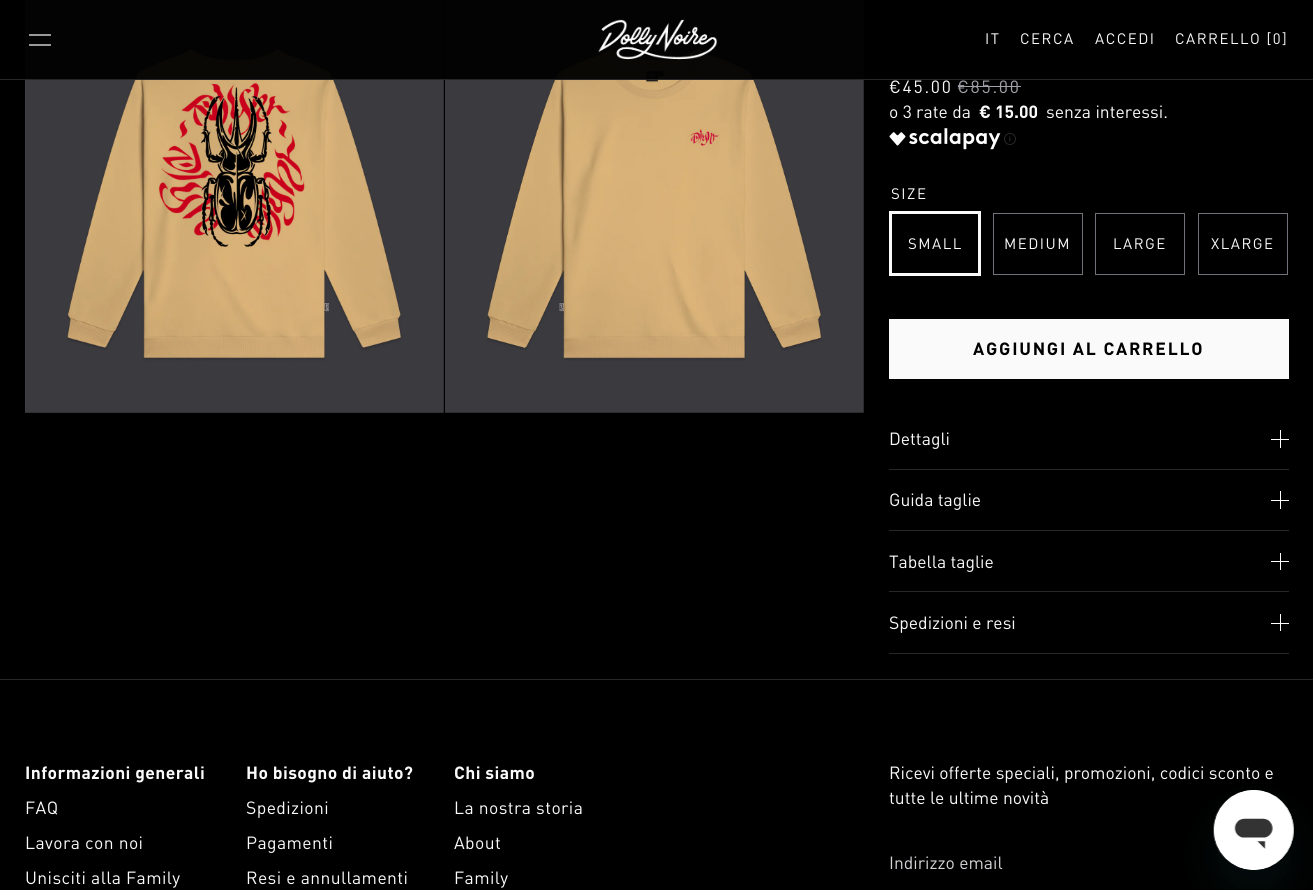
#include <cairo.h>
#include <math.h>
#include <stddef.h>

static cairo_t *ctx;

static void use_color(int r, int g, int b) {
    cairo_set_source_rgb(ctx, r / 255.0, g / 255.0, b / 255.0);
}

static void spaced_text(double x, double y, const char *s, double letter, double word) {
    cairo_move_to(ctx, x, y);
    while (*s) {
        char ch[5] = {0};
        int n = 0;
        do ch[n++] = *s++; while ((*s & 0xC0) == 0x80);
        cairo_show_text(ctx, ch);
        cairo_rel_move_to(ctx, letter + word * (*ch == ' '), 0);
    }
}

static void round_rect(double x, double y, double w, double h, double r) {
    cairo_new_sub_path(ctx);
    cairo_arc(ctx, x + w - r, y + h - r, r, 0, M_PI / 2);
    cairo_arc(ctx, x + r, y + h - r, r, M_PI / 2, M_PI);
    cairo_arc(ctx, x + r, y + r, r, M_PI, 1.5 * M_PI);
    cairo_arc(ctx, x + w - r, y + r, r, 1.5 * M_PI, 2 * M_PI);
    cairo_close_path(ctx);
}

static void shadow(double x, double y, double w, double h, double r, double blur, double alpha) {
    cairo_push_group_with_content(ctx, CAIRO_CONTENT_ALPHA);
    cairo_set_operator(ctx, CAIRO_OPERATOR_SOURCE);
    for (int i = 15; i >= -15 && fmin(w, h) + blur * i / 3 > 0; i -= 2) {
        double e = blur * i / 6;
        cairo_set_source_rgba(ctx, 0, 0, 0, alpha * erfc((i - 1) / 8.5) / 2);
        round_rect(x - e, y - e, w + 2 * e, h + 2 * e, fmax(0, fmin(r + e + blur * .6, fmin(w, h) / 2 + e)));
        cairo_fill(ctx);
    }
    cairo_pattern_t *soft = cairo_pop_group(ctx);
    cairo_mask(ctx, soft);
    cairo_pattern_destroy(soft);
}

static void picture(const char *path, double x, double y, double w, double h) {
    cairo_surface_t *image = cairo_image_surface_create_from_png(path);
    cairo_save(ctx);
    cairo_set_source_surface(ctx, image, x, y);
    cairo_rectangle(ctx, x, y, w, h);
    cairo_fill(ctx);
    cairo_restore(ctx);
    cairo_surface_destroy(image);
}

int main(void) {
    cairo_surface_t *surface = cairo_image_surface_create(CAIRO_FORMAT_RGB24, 1313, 890);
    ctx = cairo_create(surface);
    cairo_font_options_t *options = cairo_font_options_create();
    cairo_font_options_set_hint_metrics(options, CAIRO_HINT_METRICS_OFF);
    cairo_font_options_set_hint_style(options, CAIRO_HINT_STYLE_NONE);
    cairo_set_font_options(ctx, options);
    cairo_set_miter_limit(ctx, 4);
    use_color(0, 0, 0);
    cairo_paint(ctx);
    picture("img2.png", 25, 0, 419, 413);
    picture("img3.png", 445, 0, 419, 413);
    cairo_set_source_rgba(ctx, 0, 0, 0, 0.95);
    cairo_rectangle(ctx, 25, 0, 839, 79);
    cairo_fill(ctx);
    use_color(39, 39, 42);
    cairo_rectangle(ctx, 0, 79, 1313, 1);
    cairo_fill(ctx);
    cairo_new_path(ctx);
    cairo_move_to(ctx, 29, 35);
    cairo_line_to(ctx, 51, 35);
    cairo_move_to(ctx, 29, 45);
    cairo_line_to(ctx, 51, 45);
    use_color(250, 250, 250);
    cairo_set_line_width(ctx, 1.2);
    cairo_stroke(ctx);
    picture("img1.png", 598, 19, 120, 41);
    cairo_select_font_face(ctx, "DIN", CAIRO_FONT_SLANT_NORMAL, CAIRO_FONT_WEIGHT_NORMAL);
    cairo_set_font_size(ctx, 15);
    spaced_text(985, 44, "IT", 1.5, 0);
    spaced_text(1020, 44, "CERCA", 1.5, 0);
    spaced_text(1095, 44, "ACCEDI", 1.5, 0);
    spaced_text(1175, 44, "CARRELLO [0]", 1.5, 0);
    cairo_set_font_size(ctx, 17.5);
    spaced_text(889, 93, "€45.00", 1.75, 0);
    use_color(161, 161, 170);
    spaced_text(957, 93, "€85.00", 1.75, 0);
    cairo_rectangle(ctx, 958, 86, 63, 1);
    cairo_fill(ctx);
    use_color(250, 250, 250);
    cairo_move_to(ctx, 889, 118);
    cairo_show_text(ctx, "o 3 rate da");
    cairo_select_font_face(ctx, "DIN", CAIRO_FONT_SLANT_NORMAL, CAIRO_FONT_WEIGHT_BOLD);
    cairo_move_to(ctx, 979, 118);
    cairo_show_text(ctx, "€ 15.00");
    cairo_select_font_face(ctx, "DIN", CAIRO_FONT_SLANT_NORMAL, CAIRO_FONT_WEIGHT_NORMAL);
    cairo_move_to(ctx, 1046, 118);
    cairo_show_text(ctx, "senza interessi.");
    picture("img4.png", 889, 128, 112, 22);
    picture("img5.png", 1004, 133, 12, 12);
    cairo_set_font_size(ctx, 15);
    spaced_text(891, 199, "SIZE", 1.5, 0);
    cairo_rectangle(ctx, 890.5, 212.5, 89, 62);
    cairo_set_line_width(ctx, 3);
    cairo_stroke(ctx);
    spaced_text(908, 249, "SMALL", 1.5, 0);
    cairo_rectangle(ctx, 993.5, 213.5, 89, 61);
    use_color(113, 113, 122);
    cairo_set_line_width(ctx, 1);
    cairo_stroke(ctx);
    use_color(250, 250, 250);
    spaced_text(1004, 249, "MEDIUM", 1.5, 0);
    cairo_rectangle(ctx, 1095.5, 213.5, 89, 61);
    use_color(113, 113, 122);
    cairo_stroke(ctx);
    use_color(250, 250, 250);
    spaced_text(1113, 249, "LARGE", 1.5, 0);
    cairo_rectangle(ctx, 1198.5, 213.5, 89, 61);
    use_color(113, 113, 122);
    cairo_stroke(ctx);
    use_color(250, 250, 250);
    spaced_text(1211, 249, "XLARGE", 1.5, 0);
    cairo_rectangle(ctx, 889, 319, 400, 60);
    cairo_fill(ctx);
    cairo_select_font_face(ctx, "DIN", CAIRO_FONT_SLANT_NORMAL, CAIRO_FONT_WEIGHT_BOLD);
    cairo_set_font_size(ctx, 17.5);
    use_color(0, 0, 0);
    spaced_text(973, 355, "AGGIUNGI AL CARRELLO", 1.75, 0);
    use_color(39, 39, 42);
    cairo_rectangle(ctx, 889, 469, 400, 1);
    cairo_fill(ctx);
    cairo_select_font_face(ctx, "DIN", CAIRO_FONT_SLANT_NORMAL, CAIRO_FONT_WEIGHT_NORMAL);
    use_color(250, 250, 250);
    cairo_move_to(ctx, 889, 445);
    cairo_show_text(ctx, "Dettagli");
    use_color(255, 255, 255);
    cairo_rectangle(ctx, 1280, 430, 1, 18);
    cairo_fill(ctx);
    cairo_rectangle(ctx, 1271, 439, 18, 1);
    cairo_fill(ctx);
    use_color(39, 39, 42);
    cairo_rectangle(ctx, 889, 530, 400, 1);
    cairo_fill(ctx);
    use_color(250, 250, 250);
    cairo_move_to(ctx, 889, 506);
    cairo_show_text(ctx, "Guida taglie");
    use_color(255, 255, 255);
    cairo_rectangle(ctx, 1280, 491, 1, 18);
    cairo_fill(ctx);
    cairo_rectangle(ctx, 1271, 500, 18, 1);
    cairo_fill(ctx);
    use_color(39, 39, 42);
    cairo_rectangle(ctx, 889, 591, 400, 1);
    cairo_fill(ctx);
    use_color(250, 250, 250);
    cairo_move_to(ctx, 889, 568);
    cairo_show_text(ctx, "Tabella taglie");
    use_color(255, 255, 255);
    cairo_rectangle(ctx, 1280, 553, 1, 17);
    cairo_fill(ctx);
    cairo_rectangle(ctx, 1271, 561, 18, 1);
    cairo_fill(ctx);
    use_color(39, 39, 42);
    cairo_rectangle(ctx, 889, 653, 400, 1);
    cairo_fill(ctx);
    use_color(250, 250, 250);
    cairo_move_to(ctx, 889, 629);
    cairo_show_text(ctx, "Spedizioni e resi");
    use_color(255, 255, 255);
    cairo_rectangle(ctx, 1280, 614, 1, 17);
    cairo_fill(ctx);
    cairo_rectangle(ctx, 1271, 623, 18, 1);
    cairo_fill(ctx);
    use_color(23, 73, 77);
    shadow(1214, 815, 80, 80, 40, 19, 0.15);
    picture("img6.png", 1213, 790, 81, 80);
    use_color(39, 39, 42);
    cairo_rectangle(ctx, 0, 679, 1313, 1);
    cairo_fill(ctx);
    cairo_select_font_face(ctx, "DIN", CAIRO_FONT_SLANT_NORMAL, CAIRO_FONT_WEIGHT_BOLD);
    use_color(250, 250, 250);
    spaced_text(25, 779, "Informazioni generali", 0.4, 0);
    cairo_select_font_face(ctx, "DIN", CAIRO_FONT_SLANT_NORMAL, CAIRO_FONT_WEIGHT_NORMAL);
    spaced_text(25, 814, "FAQ", 0.4, 0);
    spaced_text(25, 849, "Lavora con noi", 0.4, 0);
    spaced_text(25, 884, "Unisciti alla Family", 0.4, 0);
    cairo_select_font_face(ctx, "DIN", CAIRO_FONT_SLANT_NORMAL, CAIRO_FONT_WEIGHT_BOLD);
    spaced_text(246, 779, "Ho bisogno di aiuto?", 0.4, 0);
    cairo_select_font_face(ctx, "DIN", CAIRO_FONT_SLANT_NORMAL, CAIRO_FONT_WEIGHT_NORMAL);
    spaced_text(246, 814, "Spedizioni", 0.4, 0);
    spaced_text(246, 849, "Pagamenti", 0.4, 0);
    spaced_text(246, 884, "Resi e annullamenti", 0.4, 0);
    cairo_select_font_face(ctx, "DIN", CAIRO_FONT_SLANT_NORMAL, CAIRO_FONT_WEIGHT_BOLD);
    spaced_text(454, 779, "Chi siamo", 0.4, 0);
    cairo_select_font_face(ctx, "DIN", CAIRO_FONT_SLANT_NORMAL, CAIRO_FONT_WEIGHT_NORMAL);
    spaced_text(454, 814, "La nostra storia", 0.4, 0);
    spaced_text(454, 849, "About", 0.4, 0);
    spaced_text(454, 884, "Family", 0.4, 0);
    cairo_move_to(ctx, 889, 779);
    cairo_show_text(ctx, "Ricevi offerte speciali, promozioni, codici sconto e");
    cairo_move_to(ctx, 889, 804);
    cairo_show_text(ctx, "tutte le ultime novità");
    use_color(212, 212, 216);
    cairo_move_to(ctx, 889, 869);
    cairo_show_text(ctx, "Indirizzo email");
    cairo_surface_write_to_png(surface, "result.png");
    cairo_font_options_destroy(options);
    cairo_destroy(ctx);
    cairo_surface_destroy(surface);
    return 0;
}
